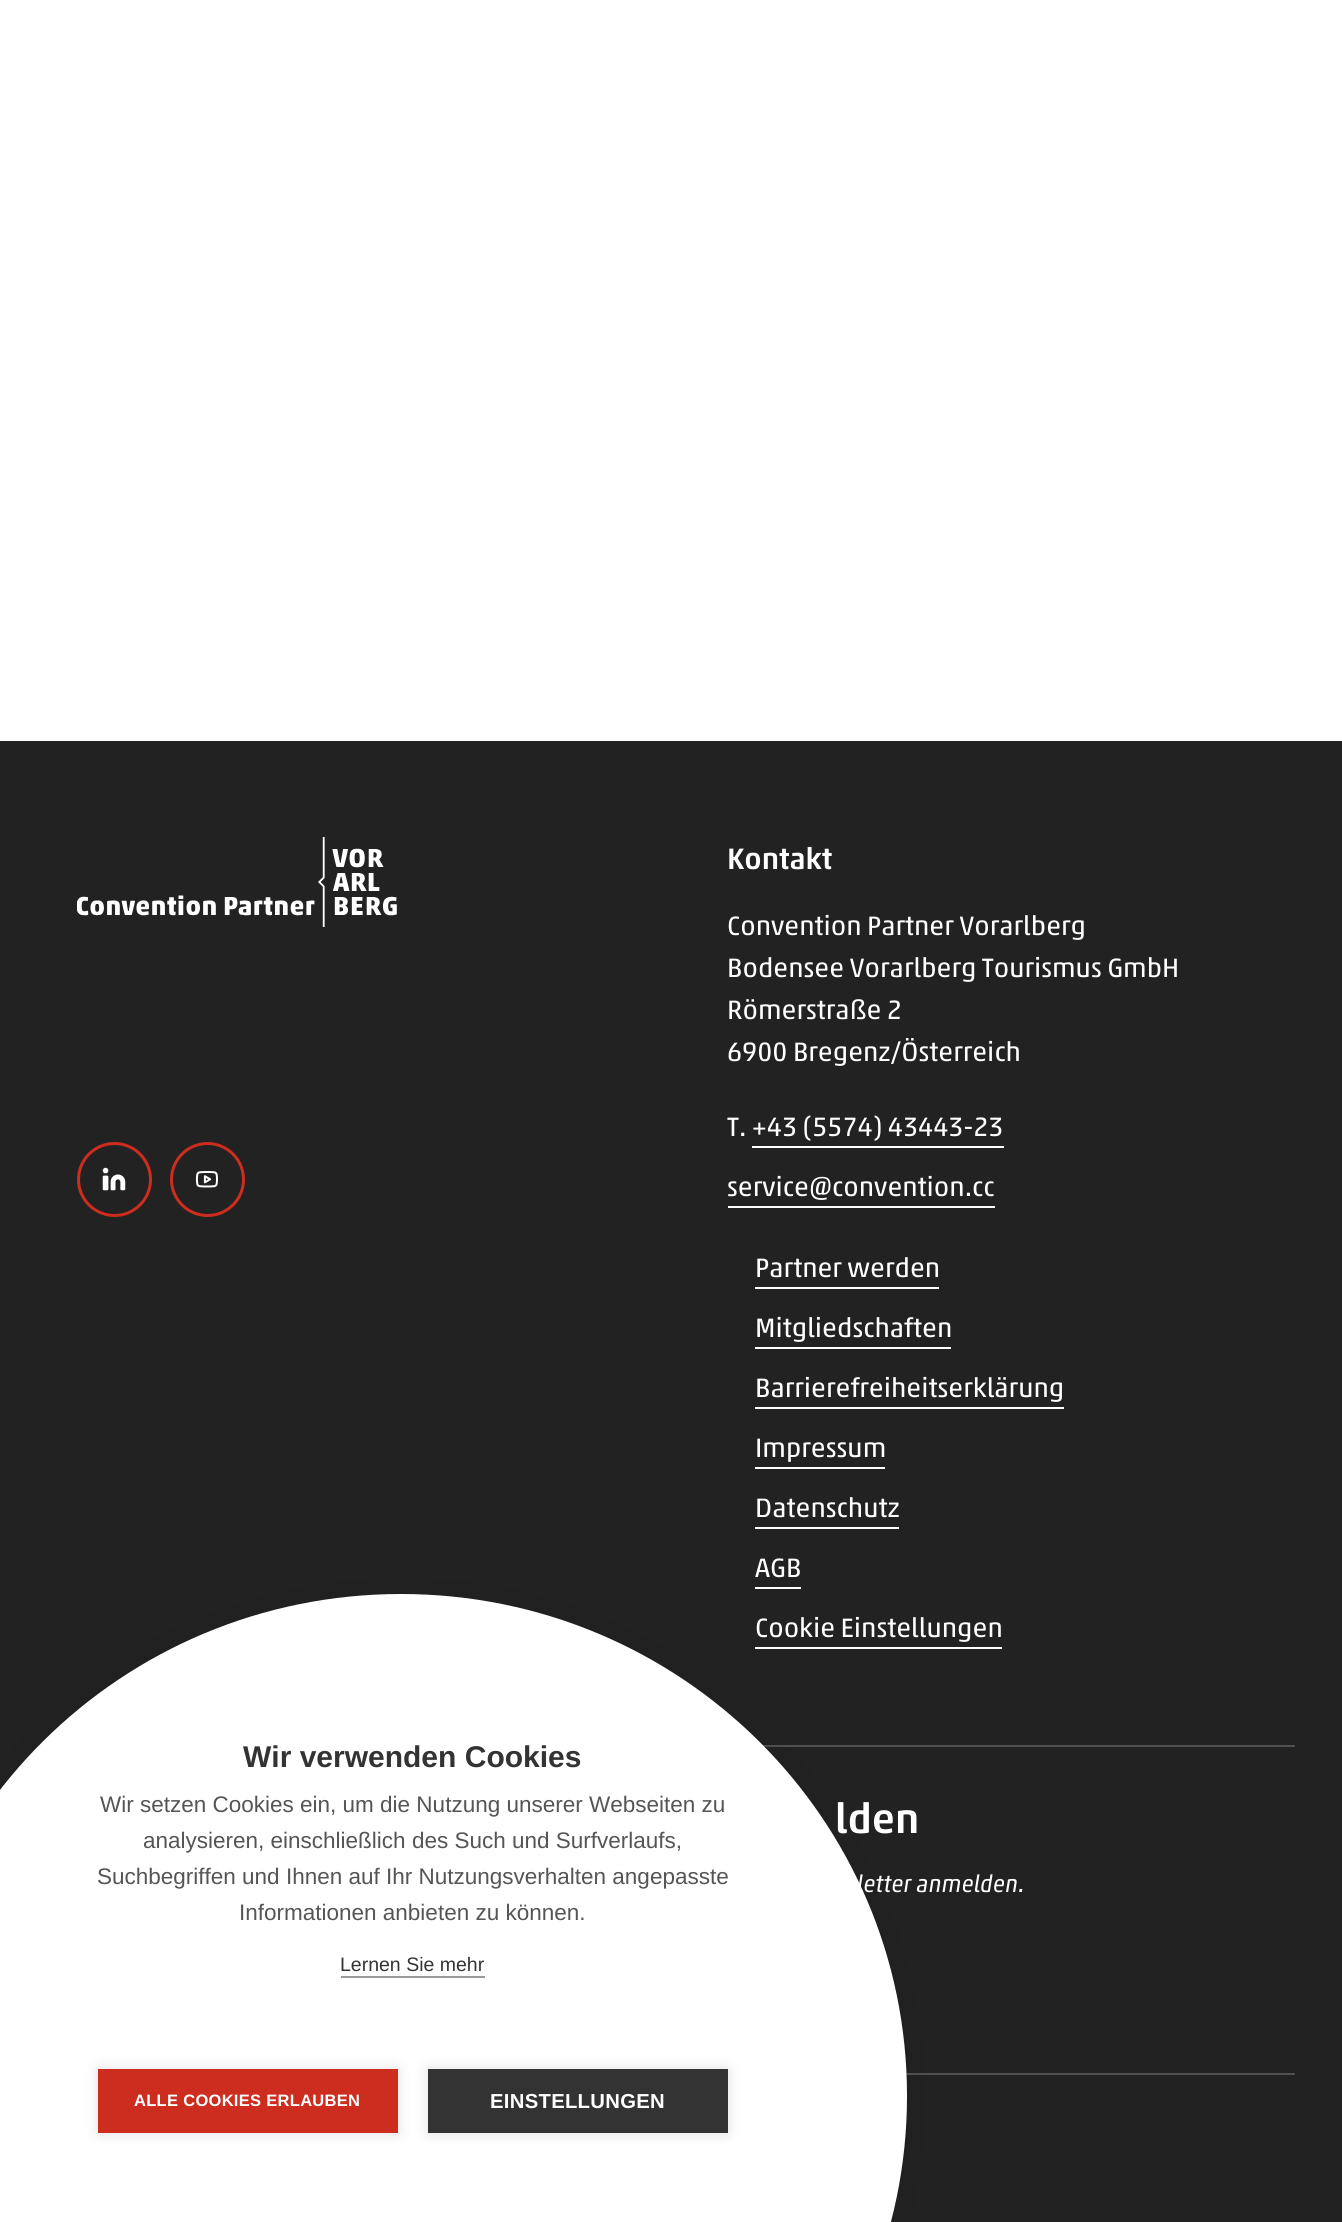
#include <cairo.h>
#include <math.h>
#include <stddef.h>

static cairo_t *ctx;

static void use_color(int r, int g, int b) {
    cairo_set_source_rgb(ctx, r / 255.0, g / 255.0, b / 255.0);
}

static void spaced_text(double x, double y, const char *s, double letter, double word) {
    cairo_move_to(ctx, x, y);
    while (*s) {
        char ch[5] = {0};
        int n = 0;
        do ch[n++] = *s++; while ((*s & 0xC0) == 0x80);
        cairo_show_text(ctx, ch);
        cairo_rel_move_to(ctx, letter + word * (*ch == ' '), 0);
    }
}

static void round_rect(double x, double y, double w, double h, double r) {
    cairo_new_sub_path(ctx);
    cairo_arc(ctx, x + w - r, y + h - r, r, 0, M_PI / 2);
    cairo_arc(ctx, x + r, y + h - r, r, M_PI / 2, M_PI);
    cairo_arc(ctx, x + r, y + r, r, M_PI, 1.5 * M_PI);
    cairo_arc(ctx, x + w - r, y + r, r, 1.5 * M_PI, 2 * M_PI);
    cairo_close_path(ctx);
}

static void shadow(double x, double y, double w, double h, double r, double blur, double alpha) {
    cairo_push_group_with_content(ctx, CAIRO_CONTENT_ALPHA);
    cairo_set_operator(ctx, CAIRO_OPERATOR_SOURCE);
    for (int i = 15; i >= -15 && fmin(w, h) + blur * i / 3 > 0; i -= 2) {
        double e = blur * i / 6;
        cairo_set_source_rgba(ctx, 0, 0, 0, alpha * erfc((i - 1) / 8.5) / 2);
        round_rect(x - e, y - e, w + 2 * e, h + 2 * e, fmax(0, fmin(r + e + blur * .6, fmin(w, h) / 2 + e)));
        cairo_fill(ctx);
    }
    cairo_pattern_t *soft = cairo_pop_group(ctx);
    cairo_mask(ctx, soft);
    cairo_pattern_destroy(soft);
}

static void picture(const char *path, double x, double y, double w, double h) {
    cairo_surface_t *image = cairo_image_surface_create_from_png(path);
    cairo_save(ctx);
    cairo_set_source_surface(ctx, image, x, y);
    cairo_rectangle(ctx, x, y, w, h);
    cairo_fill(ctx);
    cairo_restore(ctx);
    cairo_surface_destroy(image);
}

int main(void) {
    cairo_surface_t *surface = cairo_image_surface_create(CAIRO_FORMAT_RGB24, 1342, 2222);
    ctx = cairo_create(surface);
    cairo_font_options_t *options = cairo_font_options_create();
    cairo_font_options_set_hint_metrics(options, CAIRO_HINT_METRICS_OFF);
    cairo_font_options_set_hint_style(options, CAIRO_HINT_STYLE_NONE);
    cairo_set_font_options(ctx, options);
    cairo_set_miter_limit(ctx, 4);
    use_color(255, 255, 255);
    cairo_paint(ctx);
    use_color(34, 34, 34);
    cairo_rectangle(ctx, 0, 741, 1342, 1481);
    cairo_fill(ctx);
    use_color(255, 255, 255);
    cairo_rectangle(ctx, 755, 1587, 46, 2);
    cairo_fill(ctx);
    cairo_rectangle(ctx, 755, 1647, 247, 2);
    cairo_fill(ctx);
    use_color(81, 81, 81);
    cairo_rectangle(ctx, 762, 1745, 533, 2);
    cairo_fill(ctx);
    cairo_rectangle(ctx, 906, 2073, 389, 2);
    cairo_fill(ctx);
    use_color(0, 0, 0);
    shadow(-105, 1595, 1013, 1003, 501.5, 15, 0.1);
    use_color(255, 255, 255);
    cairo_new_path(ctx);
    cairo_move_to(ctx, 401, 1594);
    cairo_curve_to(ctx, 680.5, 1594, 907, 1819, 907, 2096);
    cairo_curve_to(ctx, 907, 2373, 680.5, 2598, 401, 2598);
    cairo_curve_to(ctx, 121.5, 2598, -105, 2373, -105, 2096);
    cairo_curve_to(ctx, -105, 1819, 121.5, 1594, 401, 1594);
    cairo_close_path(ctx);
    cairo_fill(ctx);
    cairo_select_font_face(ctx, "Liberation Sans", CAIRO_FONT_SLANT_NORMAL, CAIRO_FONT_WEIGHT_BOLD);
    cairo_set_font_size(ctx, 30);
    use_color(51, 51, 51);
    cairo_move_to(ctx, 243, 1767);
    cairo_show_text(ctx, "Wir verwenden Cookies");
    cairo_select_font_face(ctx, "Liberation Sans", CAIRO_FONT_SLANT_NORMAL, CAIRO_FONT_WEIGHT_NORMAL);
    cairo_set_font_size(ctx, 22.5);
    use_color(85, 85, 85);
    cairo_move_to(ctx, 100, 1812);
    cairo_show_text(ctx, "Wir setzen Cookies ein, um die Nutzung unserer Webseiten zu");
    cairo_move_to(ctx, 143, 1848);
    cairo_show_text(ctx, "analysieren, einschließlich des Such und Surfverlaufs,");
    cairo_move_to(ctx, 97, 1884);
    cairo_show_text(ctx, "Suchbegriffen und Ihnen auf Ihr Nutzungsverhalten angepasste");
    cairo_move_to(ctx, 239, 1920);
    cairo_show_text(ctx, "Informationen anbieten zu können.");
    cairo_set_font_size(ctx, 19.5);
    use_color(51, 51, 51);
    cairo_move_to(ctx, 340, 1971);
    cairo_show_text(ctx, "Lernen Sie mehr");
    use_color(153, 153, 153);
    cairo_rectangle(ctx, 341, 1976, 144, 2);
    cairo_fill(ctx);
    use_color(0, 0, 0);
    shadow(98, 2069, 300, 64, 0, 7.5, 0.12);
    use_color(204, 45, 31);
    cairo_rectangle(ctx, 98, 2069, 300, 64);
    cairo_fill(ctx);
    cairo_select_font_face(ctx, "Liberation Sans", CAIRO_FONT_SLANT_NORMAL, CAIRO_FONT_WEIGHT_BOLD);
    cairo_set_font_size(ctx, 16.5);
    use_color(255, 255, 255);
    spaced_text(134, 2106, "ALLE COOKIES ERLAUBEN", 0.3, 0);
    use_color(0, 0, 0);
    shadow(428, 2069, 300, 64, 0, 7.5, 0.12);
    use_color(51, 51, 51);
    cairo_rectangle(ctx, 428, 2069, 300, 64);
    cairo_fill(ctx);
    cairo_set_font_size(ctx, 20.25);
    use_color(255, 255, 255);
    spaced_text(490, 2108, "EINSTELLUNGEN", 0.3, 0);
    picture("img1.png", 77, 837, 320, 90);
    cairo_arc(ctx, 114.5, 1179.5, 36, 0, 2 * M_PI);
    use_color(204, 45, 31);
    cairo_set_line_width(ctx, 3);
    cairo_stroke(ctx);
    picture("img2.png", 102, 1167, 24, 24);
    cairo_arc(ctx, 207.5, 1179.5, 36, 0, 2 * M_PI);
    cairo_stroke(ctx);
    picture("img3.png", 195, 1171, 23, 17);
    cairo_select_font_face(ctx, "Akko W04 Medium", CAIRO_FONT_SLANT_NORMAL, CAIRO_FONT_WEIGHT_NORMAL);
    cairo_set_font_size(ctx, 30);
    use_color(255, 255, 255);
    cairo_move_to(ctx, 727, 869);
    cairo_show_text(ctx, "Kontakt");
    cairo_select_font_face(ctx, "Akko W04", CAIRO_FONT_SLANT_NORMAL, CAIRO_FONT_WEIGHT_NORMAL);
    cairo_set_font_size(ctx, 27);
    cairo_move_to(ctx, 727, 935);
    cairo_show_text(ctx, "Convention Partner Vorarlberg");
    cairo_move_to(ctx, 727, 977);
    cairo_show_text(ctx, "Bodensee Vorarlberg Tourismus GmbH");
    cairo_move_to(ctx, 727, 1019);
    cairo_show_text(ctx, "Römerstraße 2");
    cairo_move_to(ctx, 727, 1061);
    cairo_show_text(ctx, "6900 Bregenz/Österreich");
    cairo_move_to(ctx, 727, 1136);
    cairo_show_text(ctx, "T. +43 (5574) 43443-23");
    cairo_rectangle(ctx, 752, 1146, 252, 2);
    cairo_fill(ctx);
    cairo_rectangle(ctx, 728, 1206, 267, 2);
    cairo_fill(ctx);
    cairo_move_to(ctx, 727, 1196);
    cairo_show_text(ctx, "service@convention.cc");
    cairo_rectangle(ctx, 755, 1287, 184, 2);
    cairo_fill(ctx);
    cairo_move_to(ctx, 755, 1277);
    cairo_show_text(ctx, "Partner werden");
    cairo_rectangle(ctx, 755, 1347, 196, 2);
    cairo_fill(ctx);
    cairo_move_to(ctx, 755, 1337);
    cairo_show_text(ctx, "Mitgliedschaften");
    cairo_rectangle(ctx, 755, 1407, 309, 2);
    cairo_fill(ctx);
    cairo_move_to(ctx, 755, 1397);
    cairo_show_text(ctx, "Barrierefreiheitserklärung");
    cairo_rectangle(ctx, 755, 1467, 130, 2);
    cairo_fill(ctx);
    cairo_move_to(ctx, 755, 1457);
    cairo_show_text(ctx, "Impressum");
    cairo_rectangle(ctx, 755, 1527, 144, 2);
    cairo_fill(ctx);
    cairo_move_to(ctx, 755, 1517);
    cairo_show_text(ctx, "Datenschutz");
    cairo_move_to(ctx, 755, 1577);
    cairo_show_text(ctx, "AGB");
    cairo_move_to(ctx, 755, 1637);
    cairo_show_text(ctx, "Cookie Einstellungen");
    cairo_select_font_face(ctx, "Akko W04 Medium", CAIRO_FONT_SLANT_NORMAL, CAIRO_FONT_WEIGHT_NORMAL);
    cairo_set_font_size(ctx, 42);
    cairo_move_to(ctx, 835, 1833);
    cairo_show_text(ctx, "lden");
    cairo_select_font_face(ctx, "Akko W04", CAIRO_FONT_SLANT_ITALIC, CAIRO_FONT_WEIGHT_NORMAL);
    cairo_set_font_size(ctx, 24);
    cairo_move_to(ctx, 857, 1892);
    cairo_show_text(ctx, "letter anmelden.");
    cairo_surface_write_to_png(surface, "result.png");
    cairo_font_options_destroy(options);
    cairo_destroy(ctx);
    cairo_surface_destroy(surface);
    return 0;
}
